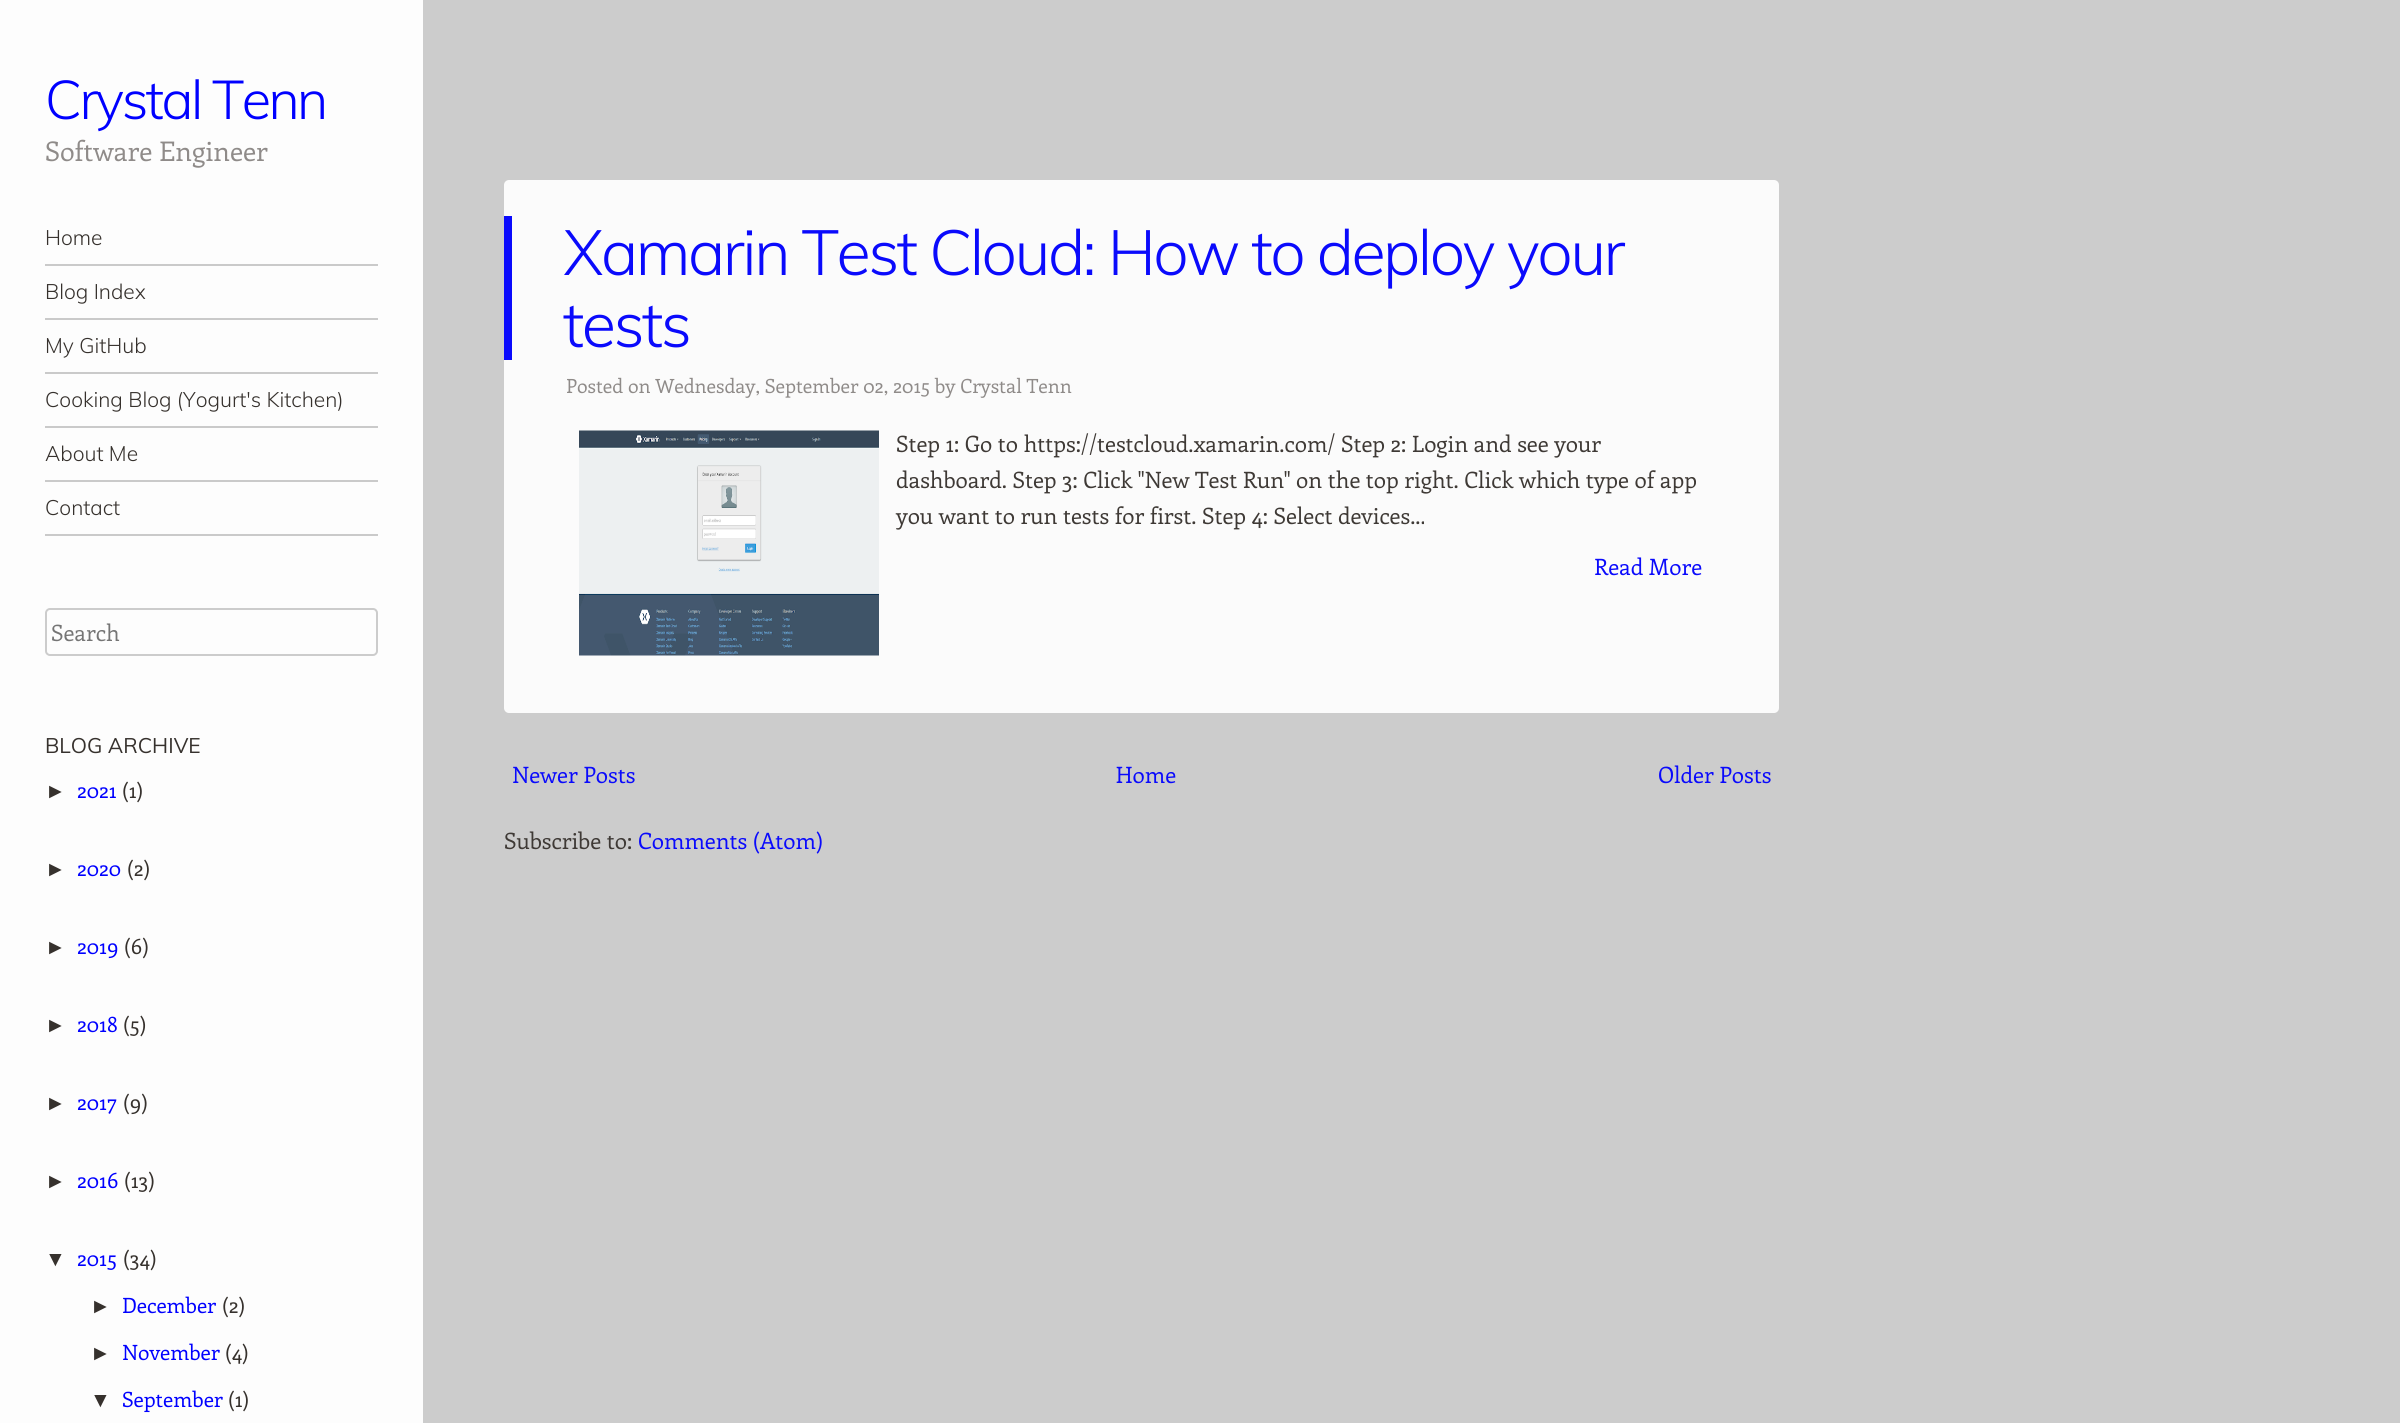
#include <cairo.h>
#include <math.h>
#include <stddef.h>

static cairo_t *ctx;

static void use_color(int r, int g, int b) {
    cairo_set_source_rgb(ctx, r / 255.0, g / 255.0, b / 255.0);
}

static void spaced_text(double x, double y, const char *s, double letter, double word) {
    cairo_move_to(ctx, x, y);
    while (*s) {
        char ch[5] = {0};
        int n = 0;
        do ch[n++] = *s++; while ((*s & 0xC0) == 0x80);
        cairo_show_text(ctx, ch);
        cairo_rel_move_to(ctx, letter + word * (*ch == ' '), 0);
    }
}

static void round_rect(double x, double y, double w, double h, double r) {
    cairo_new_sub_path(ctx);
    cairo_arc(ctx, x + w - r, y + h - r, r, 0, M_PI / 2);
    cairo_arc(ctx, x + r, y + h - r, r, M_PI / 2, M_PI);
    cairo_arc(ctx, x + r, y + r, r, M_PI, 1.5 * M_PI);
    cairo_arc(ctx, x + w - r, y + r, r, 1.5 * M_PI, 2 * M_PI);
    cairo_close_path(ctx);
}

static void picture(const char *path, double x, double y, double w, double h) {
    cairo_surface_t *image = cairo_image_surface_create_from_png(path);
    cairo_save(ctx);
    cairo_set_source_surface(ctx, image, x, y);
    cairo_rectangle(ctx, x, y, w, h);
    cairo_fill(ctx);
    cairo_restore(ctx);
    cairo_surface_destroy(image);
}

int main(void) {
    cairo_surface_t *surface = cairo_image_surface_create(CAIRO_FORMAT_RGB24, 2400, 1423);
    ctx = cairo_create(surface);
    cairo_font_options_t *options = cairo_font_options_create();
    cairo_font_options_set_hint_metrics(options, CAIRO_HINT_METRICS_OFF);
    cairo_font_options_set_hint_style(options, CAIRO_HINT_STYLE_NONE);
    cairo_set_font_options(ctx, options);
    cairo_set_miter_limit(ctx, 4);
    use_color(204, 204, 204);
    cairo_paint(ctx);
    use_color(253, 253, 253);
    cairo_rectangle(ctx, 0, 0, 423, 1423);
    cairo_fill(ctx);
    cairo_select_font_face(ctx, "Muli Light", CAIRO_FONT_SLANT_NORMAL, CAIRO_FONT_WEIGHT_NORMAL);
    cairo_set_font_size(ctx, 54);
    use_color(0, 0, 255);
    spaced_text(45, 119, "Crystal Tenn", -2.5, 0);
    cairo_select_font_face(ctx, "Enriqueta", CAIRO_FONT_SLANT_NORMAL, CAIRO_FONT_WEIGHT_NORMAL);
    cairo_set_font_size(ctx, 27);
    use_color(143, 139, 137);
    cairo_move_to(ctx, 45, 161);
    cairo_show_text(ctx, "Software Engineer");
    use_color(202, 202, 202);
    cairo_rectangle(ctx, 45, 264, 333, 2);
    cairo_fill(ctx);
    cairo_select_font_face(ctx, "Muli Light", CAIRO_FONT_SLANT_NORMAL, CAIRO_FONT_WEIGHT_NORMAL);
    cairo_set_font_size(ctx, 21);
    use_color(54, 49, 45);
    cairo_move_to(ctx, 45, 245);
    cairo_show_text(ctx, "Home");
    use_color(202, 202, 202);
    cairo_rectangle(ctx, 45, 318, 333, 2);
    cairo_fill(ctx);
    use_color(54, 49, 45);
    cairo_move_to(ctx, 45, 299);
    cairo_show_text(ctx, "Blog Index");
    use_color(202, 202, 202);
    cairo_rectangle(ctx, 45, 372, 333, 2);
    cairo_fill(ctx);
    use_color(54, 49, 45);
    cairo_move_to(ctx, 45, 353);
    cairo_show_text(ctx, "My GitHub");
    use_color(202, 202, 202);
    cairo_rectangle(ctx, 45, 426, 333, 2);
    cairo_fill(ctx);
    use_color(54, 49, 45);
    cairo_move_to(ctx, 45, 407);
    cairo_show_text(ctx, "Cooking Blog (Yogurt's Kitchen)");
    use_color(202, 202, 202);
    cairo_rectangle(ctx, 45, 480, 333, 2);
    cairo_fill(ctx);
    use_color(54, 49, 45);
    cairo_move_to(ctx, 45, 461);
    cairo_show_text(ctx, "About Me");
    use_color(202, 202, 202);
    cairo_rectangle(ctx, 45, 534, 333, 2);
    cairo_fill(ctx);
    use_color(54, 49, 45);
    cairo_move_to(ctx, 45, 515);
    cairo_show_text(ctx, "Contact");
    use_color(251, 251, 251);
    round_rect(504, 180, 1275, 533, 5);
    cairo_fill(ctx);
    use_color(10, 10, 252);
    cairo_rectangle(ctx, 504, 216, 8, 144);
    cairo_fill(ctx);
    cairo_set_font_size(ctx, 63);
    spaced_text(563, 275, "Xamarin Test Cloud: How to deploy your", -2.5, 0);
    spaced_text(563, 347, "tests", -2.5, 0);
    cairo_select_font_face(ctx, "Enriqueta", CAIRO_FONT_SLANT_NORMAL, CAIRO_FONT_WEIGHT_NORMAL);
    cairo_set_font_size(ctx, 19.5);
    use_color(143, 139, 137);
    cairo_move_to(ctx, 566, 393);
    cairo_show_text(ctx, "Posted on Wednesday, September 02, 2015 by Crystal Tenn");
    picture("img1.png", 579, 430, 300, 226);
    cairo_set_font_size(ctx, 22.5);
    use_color(62, 57, 53);
    cairo_move_to(ctx, 896, 452);
    cairo_show_text(ctx, "Step 1: Go to https://testcloud.xamarin.com/ Step 2: Login and see your");
    cairo_move_to(ctx, 896, 488);
    cairo_show_text(ctx, "dashboard. Step 3: Click \"New Test Run\" on the top right. Click which type of app");
    cairo_move_to(ctx, 896, 524);
    cairo_show_text(ctx, "you want to run tests for first. Step 4: Select devices...");
    use_color(10, 10, 252);
    cairo_move_to(ctx, 1594, 575);
    cairo_show_text(ctx, "Read More");
    cairo_move_to(ctx, 512, 783);
    cairo_show_text(ctx, "Newer Posts");
    cairo_move_to(ctx, 1116, 783);
    cairo_show_text(ctx, "Home");
    cairo_move_to(ctx, 1658, 783);
    cairo_show_text(ctx, "Older Posts");
    use_color(62, 57, 53);
    cairo_move_to(ctx, 504, 849);
    cairo_show_text(ctx, "Subscribe to:");
    use_color(10, 10, 252);
    cairo_move_to(ctx, 638, 849);
    cairo_show_text(ctx, "Comments (Atom)");
    round_rect(46, 609, 331, 46, 4);
    use_color(204, 204, 204);
    cairo_stroke(ctx);
    use_color(117, 117, 117);
    cairo_move_to(ctx, 51, 641);
    cairo_show_text(ctx, "Search");
    cairo_select_font_face(ctx, "Muli", CAIRO_FONT_SLANT_NORMAL, CAIRO_FONT_WEIGHT_NORMAL);
    cairo_set_font_size(ctx, 21);
    use_color(54, 49, 45);
    cairo_move_to(ctx, 45, 753);
    cairo_show_text(ctx, "BLOG ARCHIVE");
    cairo_select_font_face(ctx, "Liberation Sans", CAIRO_FONT_SLANT_NORMAL, CAIRO_FONT_WEIGHT_NORMAL);
    cairo_move_to(ctx, 45, 798);
    cairo_show_text(ctx, "►");
    cairo_select_font_face(ctx, "Enriqueta", CAIRO_FONT_SLANT_NORMAL, CAIRO_FONT_WEIGHT_NORMAL);
    use_color(0, 0, 255);
    cairo_move_to(ctx, 77, 798);
    cairo_show_text(ctx, "2021");
    use_color(54, 49, 45);
    cairo_move_to(ctx, 122, 798);
    cairo_show_text(ctx, "(1)");
    cairo_select_font_face(ctx, "Liberation Sans", CAIRO_FONT_SLANT_NORMAL, CAIRO_FONT_WEIGHT_NORMAL);
    cairo_move_to(ctx, 45, 876);
    cairo_show_text(ctx, "►");
    cairo_select_font_face(ctx, "Enriqueta", CAIRO_FONT_SLANT_NORMAL, CAIRO_FONT_WEIGHT_NORMAL);
    use_color(0, 0, 255);
    cairo_move_to(ctx, 77, 876);
    cairo_show_text(ctx, "2020");
    use_color(54, 49, 45);
    cairo_move_to(ctx, 127, 876);
    cairo_show_text(ctx, "(2)");
    cairo_select_font_face(ctx, "Liberation Sans", CAIRO_FONT_SLANT_NORMAL, CAIRO_FONT_WEIGHT_NORMAL);
    cairo_move_to(ctx, 45, 954);
    cairo_show_text(ctx, "►");
    cairo_select_font_face(ctx, "Enriqueta", CAIRO_FONT_SLANT_NORMAL, CAIRO_FONT_WEIGHT_NORMAL);
    use_color(0, 0, 255);
    cairo_move_to(ctx, 77, 954);
    cairo_show_text(ctx, "2019");
    use_color(54, 49, 45);
    cairo_move_to(ctx, 124, 954);
    cairo_show_text(ctx, "(6)");
    cairo_select_font_face(ctx, "Liberation Sans", CAIRO_FONT_SLANT_NORMAL, CAIRO_FONT_WEIGHT_NORMAL);
    cairo_move_to(ctx, 45, 1032);
    cairo_show_text(ctx, "►");
    cairo_select_font_face(ctx, "Enriqueta", CAIRO_FONT_SLANT_NORMAL, CAIRO_FONT_WEIGHT_NORMAL);
    use_color(0, 0, 255);
    cairo_move_to(ctx, 77, 1032);
    cairo_show_text(ctx, "2018");
    use_color(54, 49, 45);
    cairo_move_to(ctx, 123, 1032);
    cairo_show_text(ctx, "(5)");
    cairo_select_font_face(ctx, "Liberation Sans", CAIRO_FONT_SLANT_NORMAL, CAIRO_FONT_WEIGHT_NORMAL);
    cairo_move_to(ctx, 45, 1110);
    cairo_show_text(ctx, "►");
    cairo_select_font_face(ctx, "Enriqueta", CAIRO_FONT_SLANT_NORMAL, CAIRO_FONT_WEIGHT_NORMAL);
    use_color(0, 0, 255);
    cairo_move_to(ctx, 77, 1110);
    cairo_show_text(ctx, "2017");
    use_color(54, 49, 45);
    cairo_move_to(ctx, 123, 1110);
    cairo_show_text(ctx, "(9)");
    cairo_select_font_face(ctx, "Liberation Sans", CAIRO_FONT_SLANT_NORMAL, CAIRO_FONT_WEIGHT_NORMAL);
    cairo_move_to(ctx, 45, 1188);
    cairo_show_text(ctx, "►");
    cairo_select_font_face(ctx, "Enriqueta", CAIRO_FONT_SLANT_NORMAL, CAIRO_FONT_WEIGHT_NORMAL);
    use_color(0, 0, 255);
    cairo_move_to(ctx, 77, 1188);
    cairo_show_text(ctx, "2016");
    use_color(54, 49, 45);
    cairo_move_to(ctx, 124, 1188);
    cairo_show_text(ctx, "(13)");
    cairo_select_font_face(ctx, "Liberation Sans", CAIRO_FONT_SLANT_NORMAL, CAIRO_FONT_WEIGHT_NORMAL);
    cairo_move_to(ctx, 45, 1266);
    cairo_show_text(ctx, "▼");
    cairo_select_font_face(ctx, "Enriqueta", CAIRO_FONT_SLANT_NORMAL, CAIRO_FONT_WEIGHT_NORMAL);
    use_color(0, 0, 255);
    cairo_move_to(ctx, 77, 1266);
    cairo_show_text(ctx, "2015");
    use_color(54, 49, 45);
    cairo_move_to(ctx, 123, 1266);
    cairo_show_text(ctx, "(34)");
    cairo_select_font_face(ctx, "Liberation Sans", CAIRO_FONT_SLANT_NORMAL, CAIRO_FONT_WEIGHT_NORMAL);
    cairo_move_to(ctx, 90, 1313);
    cairo_show_text(ctx, "►");
    cairo_select_font_face(ctx, "Enriqueta", CAIRO_FONT_SLANT_NORMAL, CAIRO_FONT_WEIGHT_NORMAL);
    use_color(0, 0, 255);
    cairo_move_to(ctx, 122, 1313);
    cairo_show_text(ctx, "December");
    use_color(54, 49, 45);
    cairo_move_to(ctx, 222, 1313);
    cairo_show_text(ctx, "(2)");
    cairo_select_font_face(ctx, "Liberation Sans", CAIRO_FONT_SLANT_NORMAL, CAIRO_FONT_WEIGHT_NORMAL);
    cairo_move_to(ctx, 90, 1360);
    cairo_show_text(ctx, "►");
    cairo_select_font_face(ctx, "Enriqueta", CAIRO_FONT_SLANT_NORMAL, CAIRO_FONT_WEIGHT_NORMAL);
    use_color(0, 0, 255);
    cairo_move_to(ctx, 122, 1360);
    cairo_show_text(ctx, "November");
    use_color(54, 49, 45);
    cairo_move_to(ctx, 225, 1360);
    cairo_show_text(ctx, "(4)");
    cairo_select_font_face(ctx, "Liberation Sans", CAIRO_FONT_SLANT_NORMAL, CAIRO_FONT_WEIGHT_NORMAL);
    cairo_move_to(ctx, 90, 1407);
    cairo_show_text(ctx, "▼");
    cairo_select_font_face(ctx, "Enriqueta", CAIRO_FONT_SLANT_NORMAL, CAIRO_FONT_WEIGHT_NORMAL);
    use_color(0, 0, 255);
    cairo_move_to(ctx, 122, 1407);
    cairo_show_text(ctx, "September");
    use_color(54, 49, 45);
    cairo_move_to(ctx, 228, 1407);
    cairo_show_text(ctx, "(1)");
    cairo_surface_write_to_png(surface, "result.png");
    cairo_font_options_destroy(options);
    cairo_destroy(ctx);
    cairo_surface_destroy(surface);
    return 0;
}
